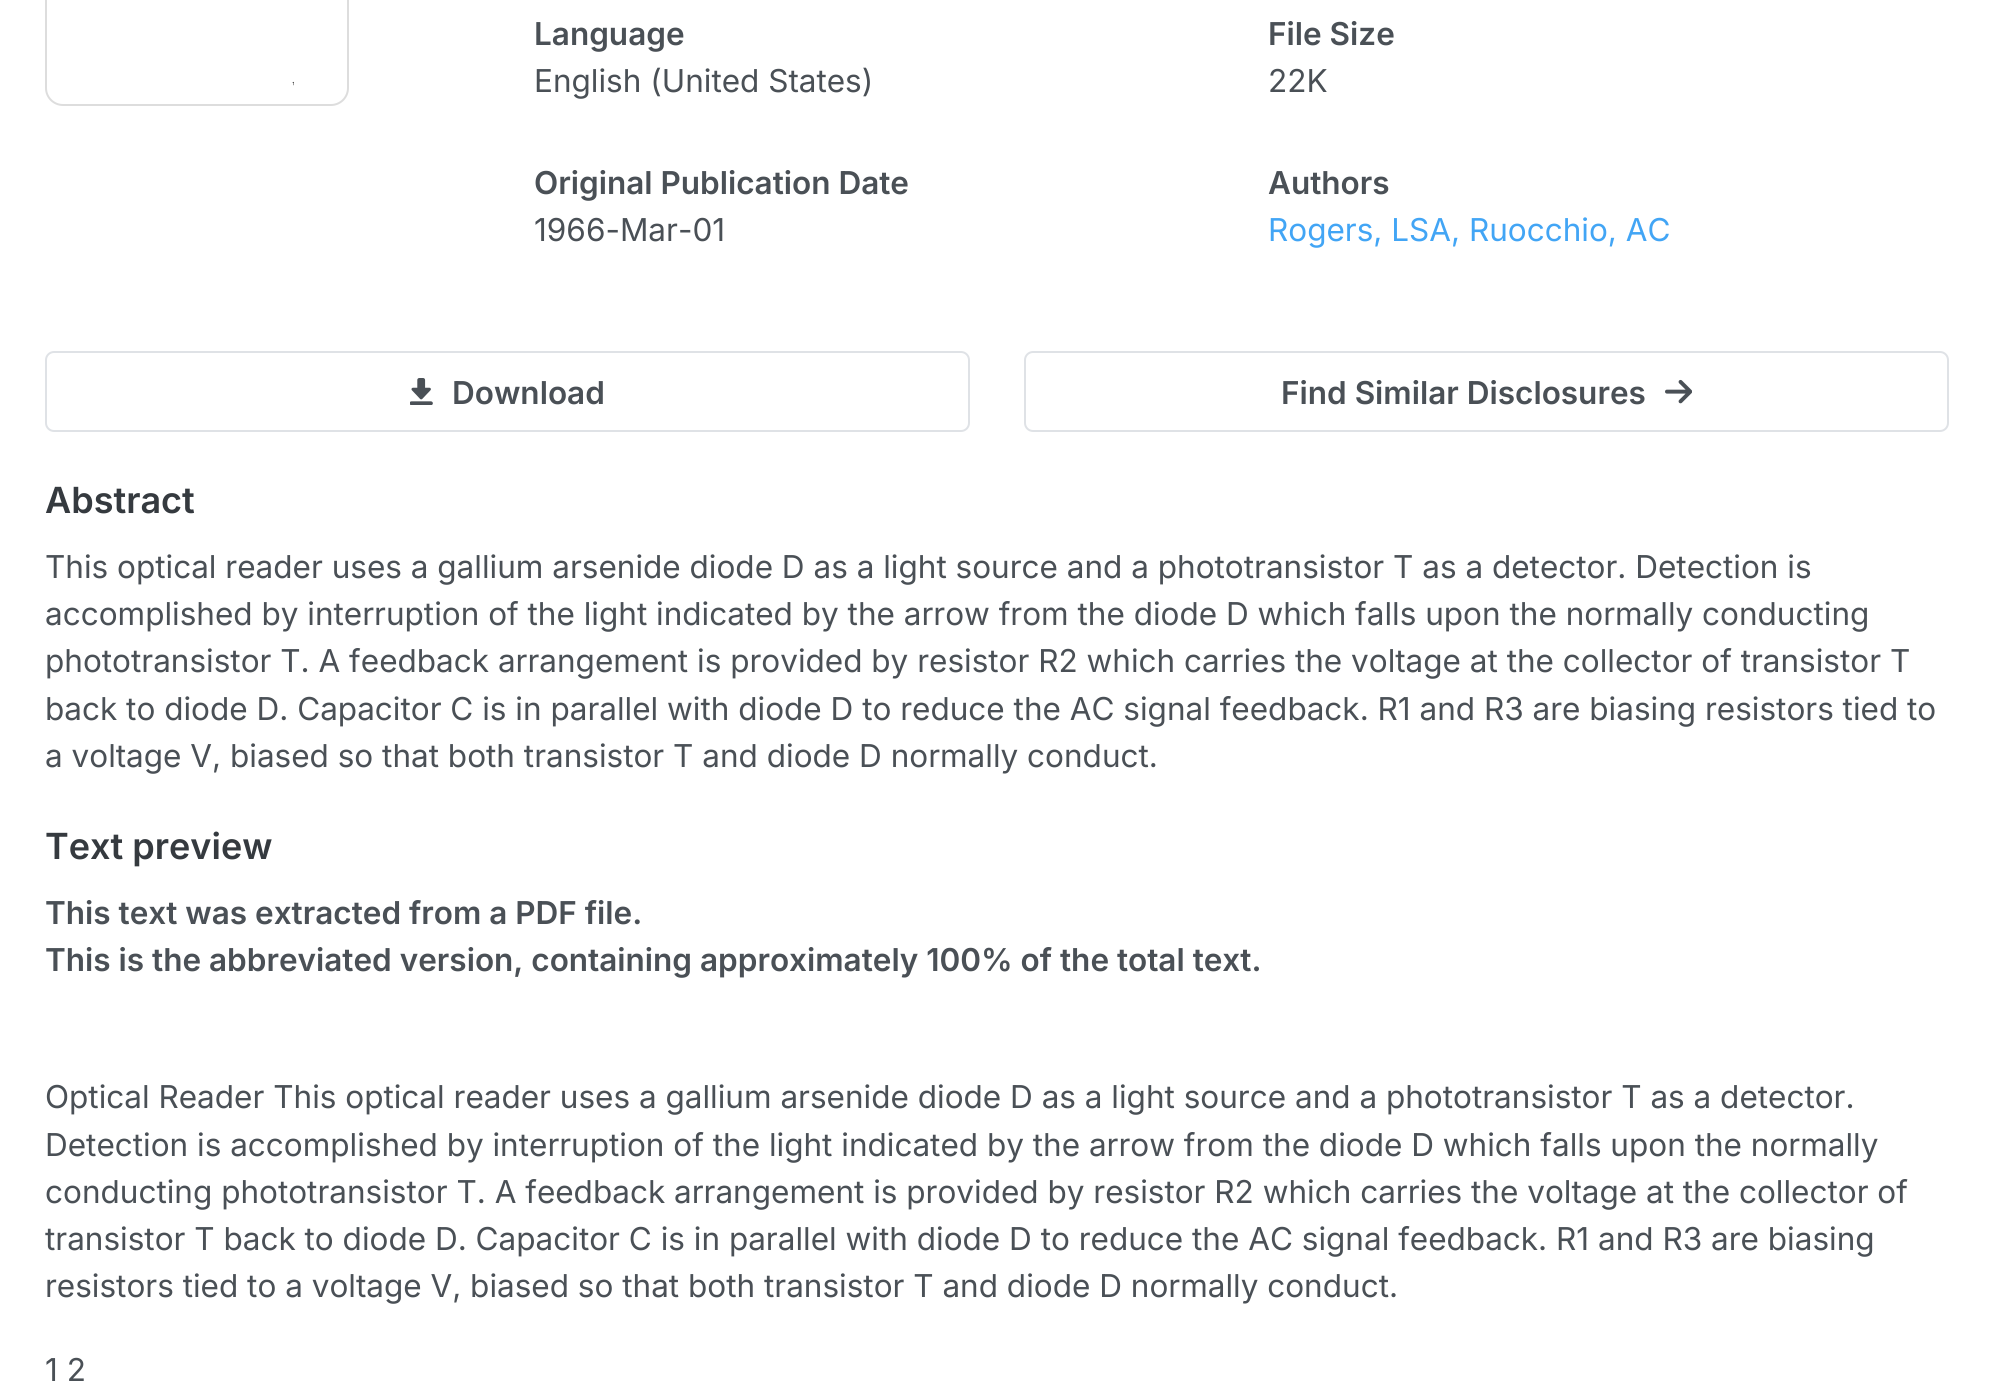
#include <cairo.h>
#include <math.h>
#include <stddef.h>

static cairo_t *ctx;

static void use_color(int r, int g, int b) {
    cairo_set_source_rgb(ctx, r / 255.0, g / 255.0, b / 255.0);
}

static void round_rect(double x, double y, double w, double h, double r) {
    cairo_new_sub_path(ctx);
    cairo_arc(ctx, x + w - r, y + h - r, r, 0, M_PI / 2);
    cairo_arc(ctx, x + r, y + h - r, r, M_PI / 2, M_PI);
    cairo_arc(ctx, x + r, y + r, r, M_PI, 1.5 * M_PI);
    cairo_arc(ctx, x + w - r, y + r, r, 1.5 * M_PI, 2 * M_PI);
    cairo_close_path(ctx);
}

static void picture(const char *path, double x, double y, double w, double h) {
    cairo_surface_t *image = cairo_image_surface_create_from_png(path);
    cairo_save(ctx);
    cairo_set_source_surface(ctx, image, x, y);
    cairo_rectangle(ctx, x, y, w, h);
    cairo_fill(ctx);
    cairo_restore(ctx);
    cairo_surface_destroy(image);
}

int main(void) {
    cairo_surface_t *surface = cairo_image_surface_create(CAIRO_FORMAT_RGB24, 1992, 1400);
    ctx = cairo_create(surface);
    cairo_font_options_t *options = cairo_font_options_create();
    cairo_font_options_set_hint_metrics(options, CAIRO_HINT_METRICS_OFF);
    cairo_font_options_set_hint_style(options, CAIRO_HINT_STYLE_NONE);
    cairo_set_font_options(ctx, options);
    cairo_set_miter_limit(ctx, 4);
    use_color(255, 255, 255);
    cairo_paint(ctx);
    round_rect(46, -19, 302, 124, 17);
    use_color(221, 221, 221);
    cairo_stroke(ctx);
    picture("img1.png", 292, 81, 2, 5);
    cairo_select_font_face(ctx, "Inter SemiBold", CAIRO_FONT_SLANT_NORMAL, CAIRO_FONT_WEIGHT_NORMAL);
    cairo_set_font_size(ctx, 31.5);
    use_color(74, 80, 86);
    cairo_move_to(ctx, 534, 45);
    cairo_show_text(ctx, "Language");
    cairo_select_font_face(ctx, "Inter", CAIRO_FONT_SLANT_NORMAL, CAIRO_FONT_WEIGHT_NORMAL);
    cairo_move_to(ctx, 534, 92);
    cairo_show_text(ctx, "English (United States)");
    cairo_select_font_face(ctx, "Inter SemiBold", CAIRO_FONT_SLANT_NORMAL, CAIRO_FONT_WEIGHT_NORMAL);
    cairo_move_to(ctx, 1268, 45);
    cairo_show_text(ctx, "File Size");
    cairo_select_font_face(ctx, "Inter", CAIRO_FONT_SLANT_NORMAL, CAIRO_FONT_WEIGHT_NORMAL);
    cairo_move_to(ctx, 1268, 92);
    cairo_show_text(ctx, "22K");
    cairo_select_font_face(ctx, "Inter SemiBold", CAIRO_FONT_SLANT_NORMAL, CAIRO_FONT_WEIGHT_NORMAL);
    cairo_move_to(ctx, 534, 194);
    cairo_show_text(ctx, "Original Publication Date");
    cairo_select_font_face(ctx, "Inter", CAIRO_FONT_SLANT_NORMAL, CAIRO_FONT_WEIGHT_NORMAL);
    cairo_move_to(ctx, 534, 241);
    cairo_show_text(ctx, "1966-Mar-01");
    cairo_select_font_face(ctx, "Inter SemiBold", CAIRO_FONT_SLANT_NORMAL, CAIRO_FONT_WEIGHT_NORMAL);
    cairo_move_to(ctx, 1268, 194);
    cairo_show_text(ctx, "Authors");
    cairo_select_font_face(ctx, "Inter", CAIRO_FONT_SLANT_NORMAL, CAIRO_FONT_WEIGHT_NORMAL);
    use_color(66, 165, 245);
    cairo_move_to(ctx, 1268, 241);
    cairo_show_text(ctx, "Rogers, LSA, Ruocchio, AC");
    round_rect(46, 352, 923, 79, 8);
    use_color(223, 226, 230);
    cairo_stroke(ctx);
    picture("img2.png", 410, 378, 23, 27);
    cairo_select_font_face(ctx, "Inter SemiBold", CAIRO_FONT_SLANT_NORMAL, CAIRO_FONT_WEIGHT_NORMAL);
    use_color(74, 80, 86);
    cairo_move_to(ctx, 452, 404);
    cairo_show_text(ctx, "Download");
    round_rect(1025, 352, 923, 79, 8);
    use_color(223, 226, 230);
    cairo_stroke(ctx);
    use_color(74, 80, 86);
    cairo_move_to(ctx, 1281, 404);
    cairo_show_text(ctx, "Find Similar Disclosures");
    picture("img3.png", 1665, 379, 27, 25);
    cairo_set_font_size(ctx, 36);
    use_color(53, 58, 63);
    cairo_move_to(ctx, 45, 513);
    cairo_show_text(ctx, "Abstract");
    cairo_select_font_face(ctx, "Inter", CAIRO_FONT_SLANT_NORMAL, CAIRO_FONT_WEIGHT_NORMAL);
    cairo_set_font_size(ctx, 31.5);
    use_color(74, 80, 86);
    cairo_move_to(ctx, 45, 578);
    cairo_show_text(ctx, "This optical reader uses a gallium arsenide diode D as a light source and a phototransistor T as a detector. Detection is");
    cairo_move_to(ctx, 45, 625);
    cairo_show_text(ctx, "accomplished by interruption of the light indicated by the arrow from the diode D which falls upon the normally conducting");
    cairo_move_to(ctx, 45, 672);
    cairo_show_text(ctx, "phototransistor T. A feedback arrangement is provided by resistor R2 which carries the voltage at the collector of transistor T");
    cairo_move_to(ctx, 45, 720);
    cairo_show_text(ctx, "back to diode D. Capacitor C is in parallel with diode D to reduce the AC signal feedback. R1 and R3 are biasing resistors tied to");
    cairo_move_to(ctx, 45, 767);
    cairo_show_text(ctx, "a voltage V, biased so that both transistor T and diode D normally conduct.");
    cairo_select_font_face(ctx, "Inter SemiBold", CAIRO_FONT_SLANT_NORMAL, CAIRO_FONT_WEIGHT_NORMAL);
    cairo_set_font_size(ctx, 36);
    use_color(53, 58, 63);
    cairo_move_to(ctx, 45, 859);
    cairo_show_text(ctx, "Text preview");
    cairo_set_font_size(ctx, 31.5);
    use_color(74, 80, 86);
    cairo_move_to(ctx, 45, 924);
    cairo_show_text(ctx, "This text was extracted from a PDF file.");
    cairo_move_to(ctx, 45, 971);
    cairo_show_text(ctx, "This is the abbreviated version, containing approximately 100% of the total text.");
    cairo_select_font_face(ctx, "Inter", CAIRO_FONT_SLANT_NORMAL, CAIRO_FONT_WEIGHT_NORMAL);
    cairo_move_to(ctx, 45, 1108);
    cairo_show_text(ctx, "Optical Reader This optical reader uses a gallium arsenide diode D as a light source and a phototransistor T as a detector.");
    cairo_move_to(ctx, 45, 1156);
    cairo_show_text(ctx, "Detection is accomplished by interruption of the light indicated by the arrow from the diode D which falls upon the normally");
    cairo_move_to(ctx, 45, 1203);
    cairo_show_text(ctx, "conducting phototransistor T. A feedback arrangement is provided by resistor R2 which carries the voltage at the collector of");
    cairo_move_to(ctx, 45, 1250);
    cairo_show_text(ctx, "transistor T back to diode D. Capacitor C is in parallel with diode D to reduce the AC signal feedback. R1 and R3 are biasing");
    cairo_move_to(ctx, 45, 1297);
    cairo_show_text(ctx, "resistors tied to a voltage V, biased so that both transistor T and diode D normally conduct.");
    cairo_move_to(ctx, 45, 1381);
    cairo_show_text(ctx, "1 2");
    cairo_surface_write_to_png(surface, "result.png");
    cairo_font_options_destroy(options);
    cairo_destroy(ctx);
    cairo_surface_destroy(surface);
    return 0;
}
